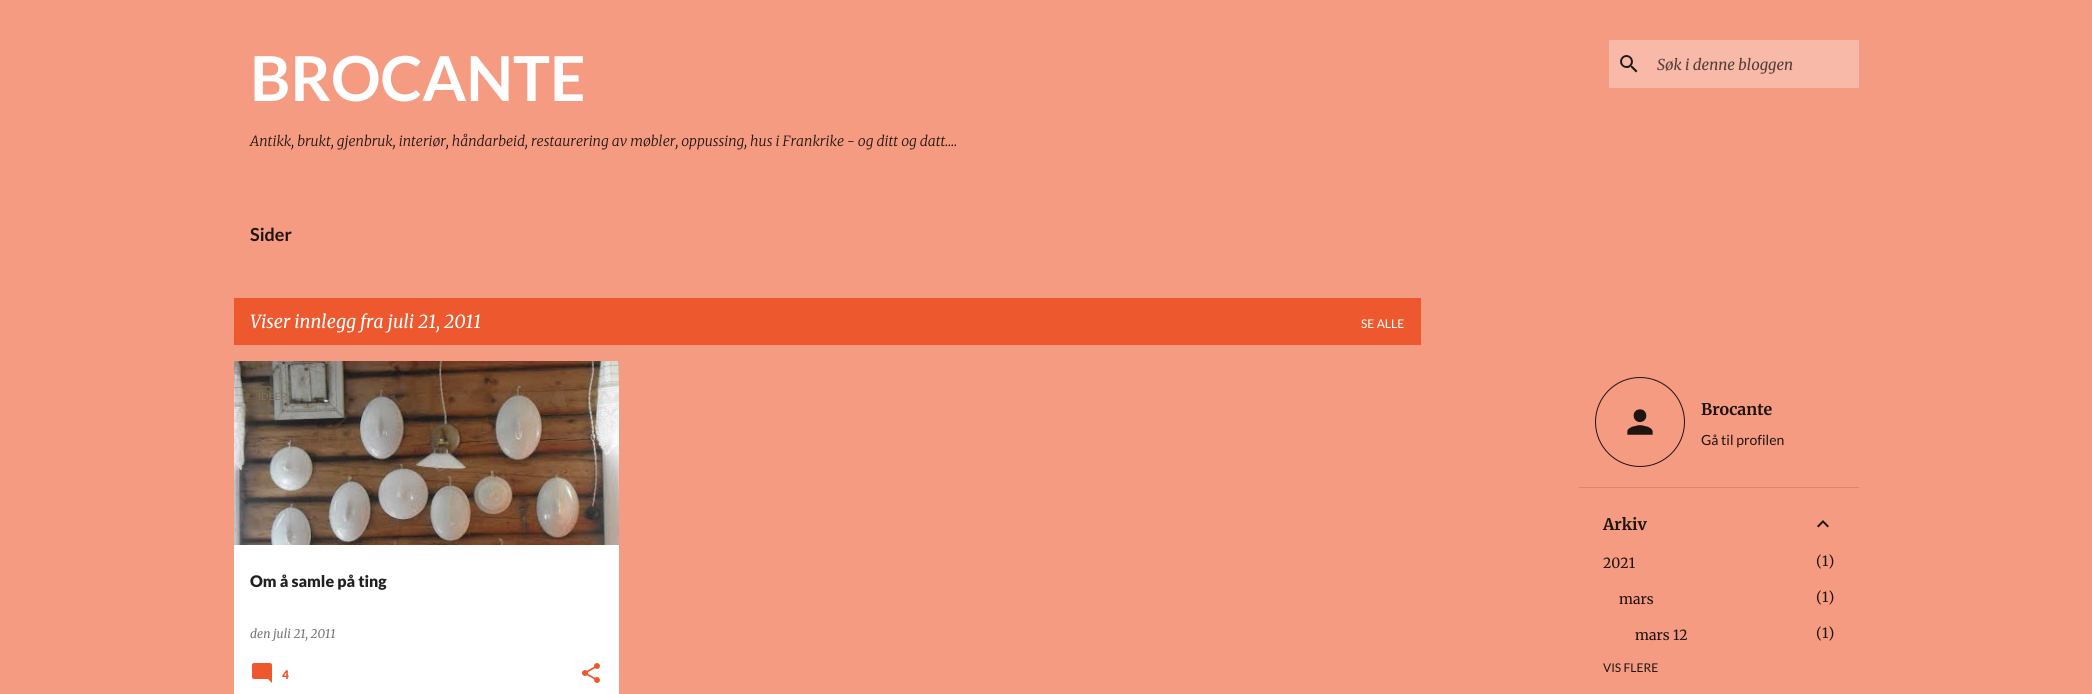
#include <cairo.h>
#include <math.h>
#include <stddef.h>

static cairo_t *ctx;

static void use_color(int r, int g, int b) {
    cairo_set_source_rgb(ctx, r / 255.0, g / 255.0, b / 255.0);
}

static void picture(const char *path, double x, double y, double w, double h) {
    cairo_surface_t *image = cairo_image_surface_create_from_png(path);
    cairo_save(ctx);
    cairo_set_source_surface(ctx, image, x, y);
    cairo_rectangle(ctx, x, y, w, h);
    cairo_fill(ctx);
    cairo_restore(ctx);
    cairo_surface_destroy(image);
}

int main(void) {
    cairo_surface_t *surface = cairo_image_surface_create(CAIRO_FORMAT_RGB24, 2092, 694);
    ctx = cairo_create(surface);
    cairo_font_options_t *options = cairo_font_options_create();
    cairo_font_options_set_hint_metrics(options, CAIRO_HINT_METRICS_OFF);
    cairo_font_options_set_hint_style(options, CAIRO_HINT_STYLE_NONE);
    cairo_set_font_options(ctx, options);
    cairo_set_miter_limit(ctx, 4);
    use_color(245, 155, 130);
    cairo_paint(ctx);
    cairo_select_font_face(ctx, "Lato", CAIRO_FONT_SLANT_NORMAL, CAIRO_FONT_WEIGHT_BOLD);
    cairo_set_font_size(ctx, 62);
    use_color(255, 255, 255);
    cairo_move_to(ctx, 250, 101);
    cairo_show_text(ctx, "BROCANTE");
    cairo_select_font_face(ctx, "Merriweather Light", CAIRO_FONT_SLANT_ITALIC, CAIRO_FONT_WEIGHT_NORMAL);
    cairo_set_font_size(ctx, 14);
    use_color(32, 20, 17);
    cairo_move_to(ctx, 250, 146);
    cairo_show_text(ctx, "Antikk, brukt, gjenbruk, interiør, håndarbeid, restaurering av møbler, oppussing, hus i Frankrike - og ditt og datt....");
    use_color(248, 185, 168);
    cairo_rectangle(ctx, 1609, 40, 250, 48);
    cairo_fill(ctx);
    picture("img1.png", 1620, 55, 18, 18);
    cairo_select_font_face(ctx, "Merriweather", CAIRO_FONT_SLANT_ITALIC, CAIRO_FONT_WEIGHT_NORMAL);
    cairo_set_font_size(ctx, 15);
    use_color(84, 63, 57);
    cairo_move_to(ctx, 1657, 70);
    cairo_show_text(ctx, "Søk i denne bloggen");
    cairo_select_font_face(ctx, "Lato", CAIRO_FONT_SLANT_NORMAL, CAIRO_FONT_WEIGHT_BOLD);
    cairo_set_font_size(ctx, 18);
    use_color(32, 20, 17);
    cairo_move_to(ctx, 250, 241);
    cairo_show_text(ctx, "Sider");
    use_color(238, 88, 46);
    cairo_rectangle(ctx, 234, 298, 1187, 47);
    cairo_fill(ctx);
    cairo_select_font_face(ctx, "Merriweather", CAIRO_FONT_SLANT_ITALIC, CAIRO_FONT_WEIGHT_NORMAL);
    use_color(255, 255, 255);
    cairo_move_to(ctx, 250, 328);
    cairo_show_text(ctx, "Viser innlegg fra juli 21, 2011");
    cairo_select_font_face(ctx, "Lato", CAIRO_FONT_SLANT_NORMAL, CAIRO_FONT_WEIGHT_NORMAL);
    cairo_set_font_size(ctx, 12);
    cairo_move_to(ctx, 1361, 328);
    cairo_show_text(ctx, "SE ALLE");
    cairo_rectangle(ctx, 234, 545, 385, 149);
    cairo_fill(ctx);
    picture("img2.png", 234, 361, 385, 184);
    cairo_set_font_size(ctx, 10);
    use_color(123, 114, 101);
    cairo_move_to(ctx, 258, 400);
    cairo_show_text(ctx, "IDEER");
    cairo_select_font_face(ctx, "Merriweather", CAIRO_FONT_SLANT_ITALIC, CAIRO_FONT_WEIGHT_NORMAL);
    cairo_set_font_size(ctx, 12);
    use_color(117, 117, 117);
    cairo_move_to(ctx, 250, 638);
    cairo_show_text(ctx, "den juli 21, 2011");
    cairo_select_font_face(ctx, "Lato Black", CAIRO_FONT_SLANT_NORMAL, CAIRO_FONT_WEIGHT_NORMAL);
    cairo_set_font_size(ctx, 16);
    use_color(33, 33, 33);
    cairo_move_to(ctx, 250, 587);
    cairo_show_text(ctx, "Om å samle på ting");
    picture("img3.png", 252, 663, 20, 20);
    cairo_set_font_size(ctx, 12);
    use_color(238, 88, 46);
    cairo_move_to(ctx, 282, 679);
    cairo_show_text(ctx, "4");
    picture("img4.png", 582, 663, 18, 20);
    cairo_arc(ctx, 1640, 422, 44.5, 0, 2 * M_PI);
    use_color(32, 20, 17);
    cairo_set_line_width(ctx, 1);
    cairo_stroke(ctx);
    picture("img5.png", 1627, 409, 26, 26);
    cairo_select_font_face(ctx, "Merriweather", CAIRO_FONT_SLANT_NORMAL, CAIRO_FONT_WEIGHT_BOLD);
    cairo_set_font_size(ctx, 16);
    cairo_move_to(ctx, 1701, 415);
    cairo_show_text(ctx, "Brocante");
    cairo_select_font_face(ctx, "Lato", CAIRO_FONT_SLANT_NORMAL, CAIRO_FONT_WEIGHT_NORMAL);
    cairo_set_font_size(ctx, 14);
    cairo_move_to(ctx, 1701, 445);
    cairo_show_text(ctx, "Gå til profilen");
    use_color(216, 136, 114);
    cairo_rectangle(ctx, 1579, 487, 280, 1);
    cairo_fill(ctx);
    cairo_select_font_face(ctx, "Merriweather", CAIRO_FONT_SLANT_NORMAL, CAIRO_FONT_WEIGHT_BOLD);
    cairo_set_font_size(ctx, 16);
    use_color(32, 20, 17);
    cairo_move_to(ctx, 1603, 530);
    cairo_show_text(ctx, "Arkiv");
    picture("img6.png", 1817, 520, 12, 8);
    cairo_select_font_face(ctx, "Merriweather", CAIRO_FONT_SLANT_NORMAL, CAIRO_FONT_WEIGHT_NORMAL);
    cairo_set_font_size(ctx, 14);
    cairo_move_to(ctx, 1603, 568);
    cairo_show_text(ctx, "2021");
    cairo_move_to(ctx, 1816, 566);
    cairo_show_text(ctx, "(1)");
    cairo_move_to(ctx, 1619, 604);
    cairo_show_text(ctx, "mars");
    cairo_move_to(ctx, 1816, 602);
    cairo_show_text(ctx, "(1)");
    cairo_move_to(ctx, 1635, 640);
    cairo_show_text(ctx, "mars 12");
    cairo_move_to(ctx, 1816, 638);
    cairo_show_text(ctx, "(1)");
    cairo_select_font_face(ctx, "Lato", CAIRO_FONT_SLANT_NORMAL, CAIRO_FONT_WEIGHT_NORMAL);
    cairo_set_font_size(ctx, 12);
    cairo_move_to(ctx, 1603, 672);
    cairo_show_text(ctx, "VIS FLERE");
    cairo_surface_write_to_png(surface, "result.png");
    cairo_font_options_destroy(options);
    cairo_destroy(ctx);
    cairo_surface_destroy(surface);
    return 0;
}
